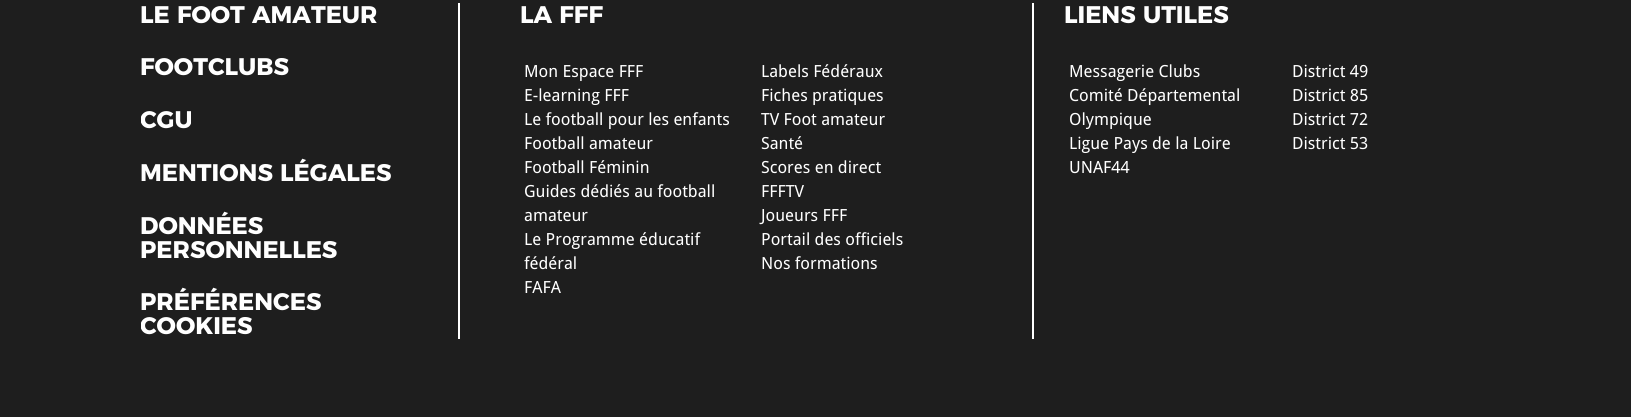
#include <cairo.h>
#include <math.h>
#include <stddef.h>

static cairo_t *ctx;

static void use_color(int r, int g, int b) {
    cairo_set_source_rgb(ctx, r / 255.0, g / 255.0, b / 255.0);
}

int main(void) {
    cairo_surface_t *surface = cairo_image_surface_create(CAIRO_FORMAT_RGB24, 1631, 417);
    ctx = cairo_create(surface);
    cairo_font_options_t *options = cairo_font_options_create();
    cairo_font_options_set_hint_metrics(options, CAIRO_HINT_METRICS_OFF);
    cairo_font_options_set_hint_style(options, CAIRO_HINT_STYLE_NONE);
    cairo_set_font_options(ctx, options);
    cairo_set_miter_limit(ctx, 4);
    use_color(30, 30, 30);
    cairo_paint(ctx);
    cairo_select_font_face(ctx, "Montserrat", CAIRO_FONT_SLANT_NORMAL, CAIRO_FONT_WEIGHT_BOLD);
    cairo_set_font_size(ctx, 24);
    use_color(255, 255, 255);
    cairo_move_to(ctx, 140, 23);
    cairo_show_text(ctx, "LE FOOT AMATEUR");
    cairo_move_to(ctx, 140, 75);
    cairo_show_text(ctx, "FOOTCLUBS");
    cairo_save(ctx);
    cairo_rectangle(ctx, 141, 3, 287, 260);
    cairo_clip(ctx);
    cairo_move_to(ctx, 140, 128);
    cairo_show_text(ctx, "CGU");
    cairo_restore(ctx);
    cairo_move_to(ctx, 140, 181);
    cairo_show_text(ctx, "MENTIONS LÉGALES");
    cairo_move_to(ctx, 140, 234);
    cairo_show_text(ctx, "DONNÉES");
    cairo_move_to(ctx, 140, 258);
    cairo_show_text(ctx, "PERSONNELLES");
    cairo_move_to(ctx, 140, 310);
    cairo_show_text(ctx, "PRÉFÉRENCES");
    cairo_save(ctx);
    cairo_rectangle(ctx, 141, 263, 287, 76);
    cairo_clip(ctx);
    cairo_move_to(ctx, 140, 334);
    cairo_show_text(ctx, "COOKIES");
    cairo_restore(ctx);
    cairo_rectangle(ctx, 1032, 3, 2, 336);
    cairo_fill(ctx);
    cairo_rectangle(ctx, 458, 3, 2, 336);
    cairo_fill(ctx);
    cairo_move_to(ctx, 520, 23);
    cairo_show_text(ctx, "LA FFF");
    cairo_select_font_face(ctx, "Droid Sans", CAIRO_FONT_SLANT_NORMAL, CAIRO_FONT_WEIGHT_NORMAL);
    cairo_set_font_size(ctx, 16.75);
    cairo_move_to(ctx, 524, 77);
    cairo_show_text(ctx, "Mon Espace FFF");
    cairo_move_to(ctx, 761, 77);
    cairo_show_text(ctx, "Labels Fédéraux");
    cairo_move_to(ctx, 524, 101);
    cairo_show_text(ctx, "E-learning FFF");
    cairo_move_to(ctx, 761, 101);
    cairo_show_text(ctx, "Fiches pratiques");
    cairo_move_to(ctx, 524, 125);
    cairo_show_text(ctx, "Le football pour les enfants");
    cairo_move_to(ctx, 761, 125);
    cairo_show_text(ctx, "TV Foot amateur");
    cairo_move_to(ctx, 524, 149);
    cairo_show_text(ctx, "Football amateur");
    cairo_move_to(ctx, 761, 149);
    cairo_show_text(ctx, "Santé");
    cairo_move_to(ctx, 524, 173);
    cairo_show_text(ctx, "Football Féminin");
    cairo_move_to(ctx, 761, 173);
    cairo_show_text(ctx, "Scores en direct");
    cairo_move_to(ctx, 524, 197);
    cairo_show_text(ctx, "Guides dédiés au football");
    cairo_move_to(ctx, 524, 221);
    cairo_show_text(ctx, "amateur");
    cairo_move_to(ctx, 761, 197);
    cairo_show_text(ctx, "FFFTV");
    cairo_move_to(ctx, 761, 221);
    cairo_show_text(ctx, "Joueurs FFF");
    cairo_move_to(ctx, 524, 245);
    cairo_show_text(ctx, "Le Programme éducatif");
    cairo_move_to(ctx, 524, 269);
    cairo_show_text(ctx, "fédéral");
    cairo_move_to(ctx, 761, 245);
    cairo_show_text(ctx, "Portail des officiels");
    cairo_move_to(ctx, 761, 269);
    cairo_show_text(ctx, "Nos formations");
    cairo_move_to(ctx, 524, 293);
    cairo_show_text(ctx, "FAFA");
    cairo_select_font_face(ctx, "Montserrat", CAIRO_FONT_SLANT_NORMAL, CAIRO_FONT_WEIGHT_BOLD);
    cairo_set_font_size(ctx, 24);
    cairo_move_to(ctx, 1064, 23);
    cairo_show_text(ctx, "LIENS UTILES");
    cairo_select_font_face(ctx, "Droid Sans", CAIRO_FONT_SLANT_NORMAL, CAIRO_FONT_WEIGHT_NORMAL);
    cairo_set_font_size(ctx, 16.75);
    cairo_move_to(ctx, 1069, 77);
    cairo_show_text(ctx, "Messagerie Clubs");
    cairo_move_to(ctx, 1292, 77);
    cairo_show_text(ctx, "District 49");
    cairo_move_to(ctx, 1069, 101);
    cairo_show_text(ctx, "Comité Départemental");
    cairo_move_to(ctx, 1069, 125);
    cairo_show_text(ctx, "Olympique");
    cairo_move_to(ctx, 1292, 101);
    cairo_show_text(ctx, "District 85");
    cairo_move_to(ctx, 1292, 125);
    cairo_show_text(ctx, "District 72");
    cairo_move_to(ctx, 1069, 149);
    cairo_show_text(ctx, "Ligue Pays de la Loire");
    cairo_move_to(ctx, 1292, 149);
    cairo_show_text(ctx, "District 53");
    cairo_move_to(ctx, 1069, 173);
    cairo_show_text(ctx, "UNAF44");
    cairo_surface_write_to_png(surface, "result.png");
    cairo_font_options_destroy(options);
    cairo_destroy(ctx);
    cairo_surface_destroy(surface);
    return 0;
}
